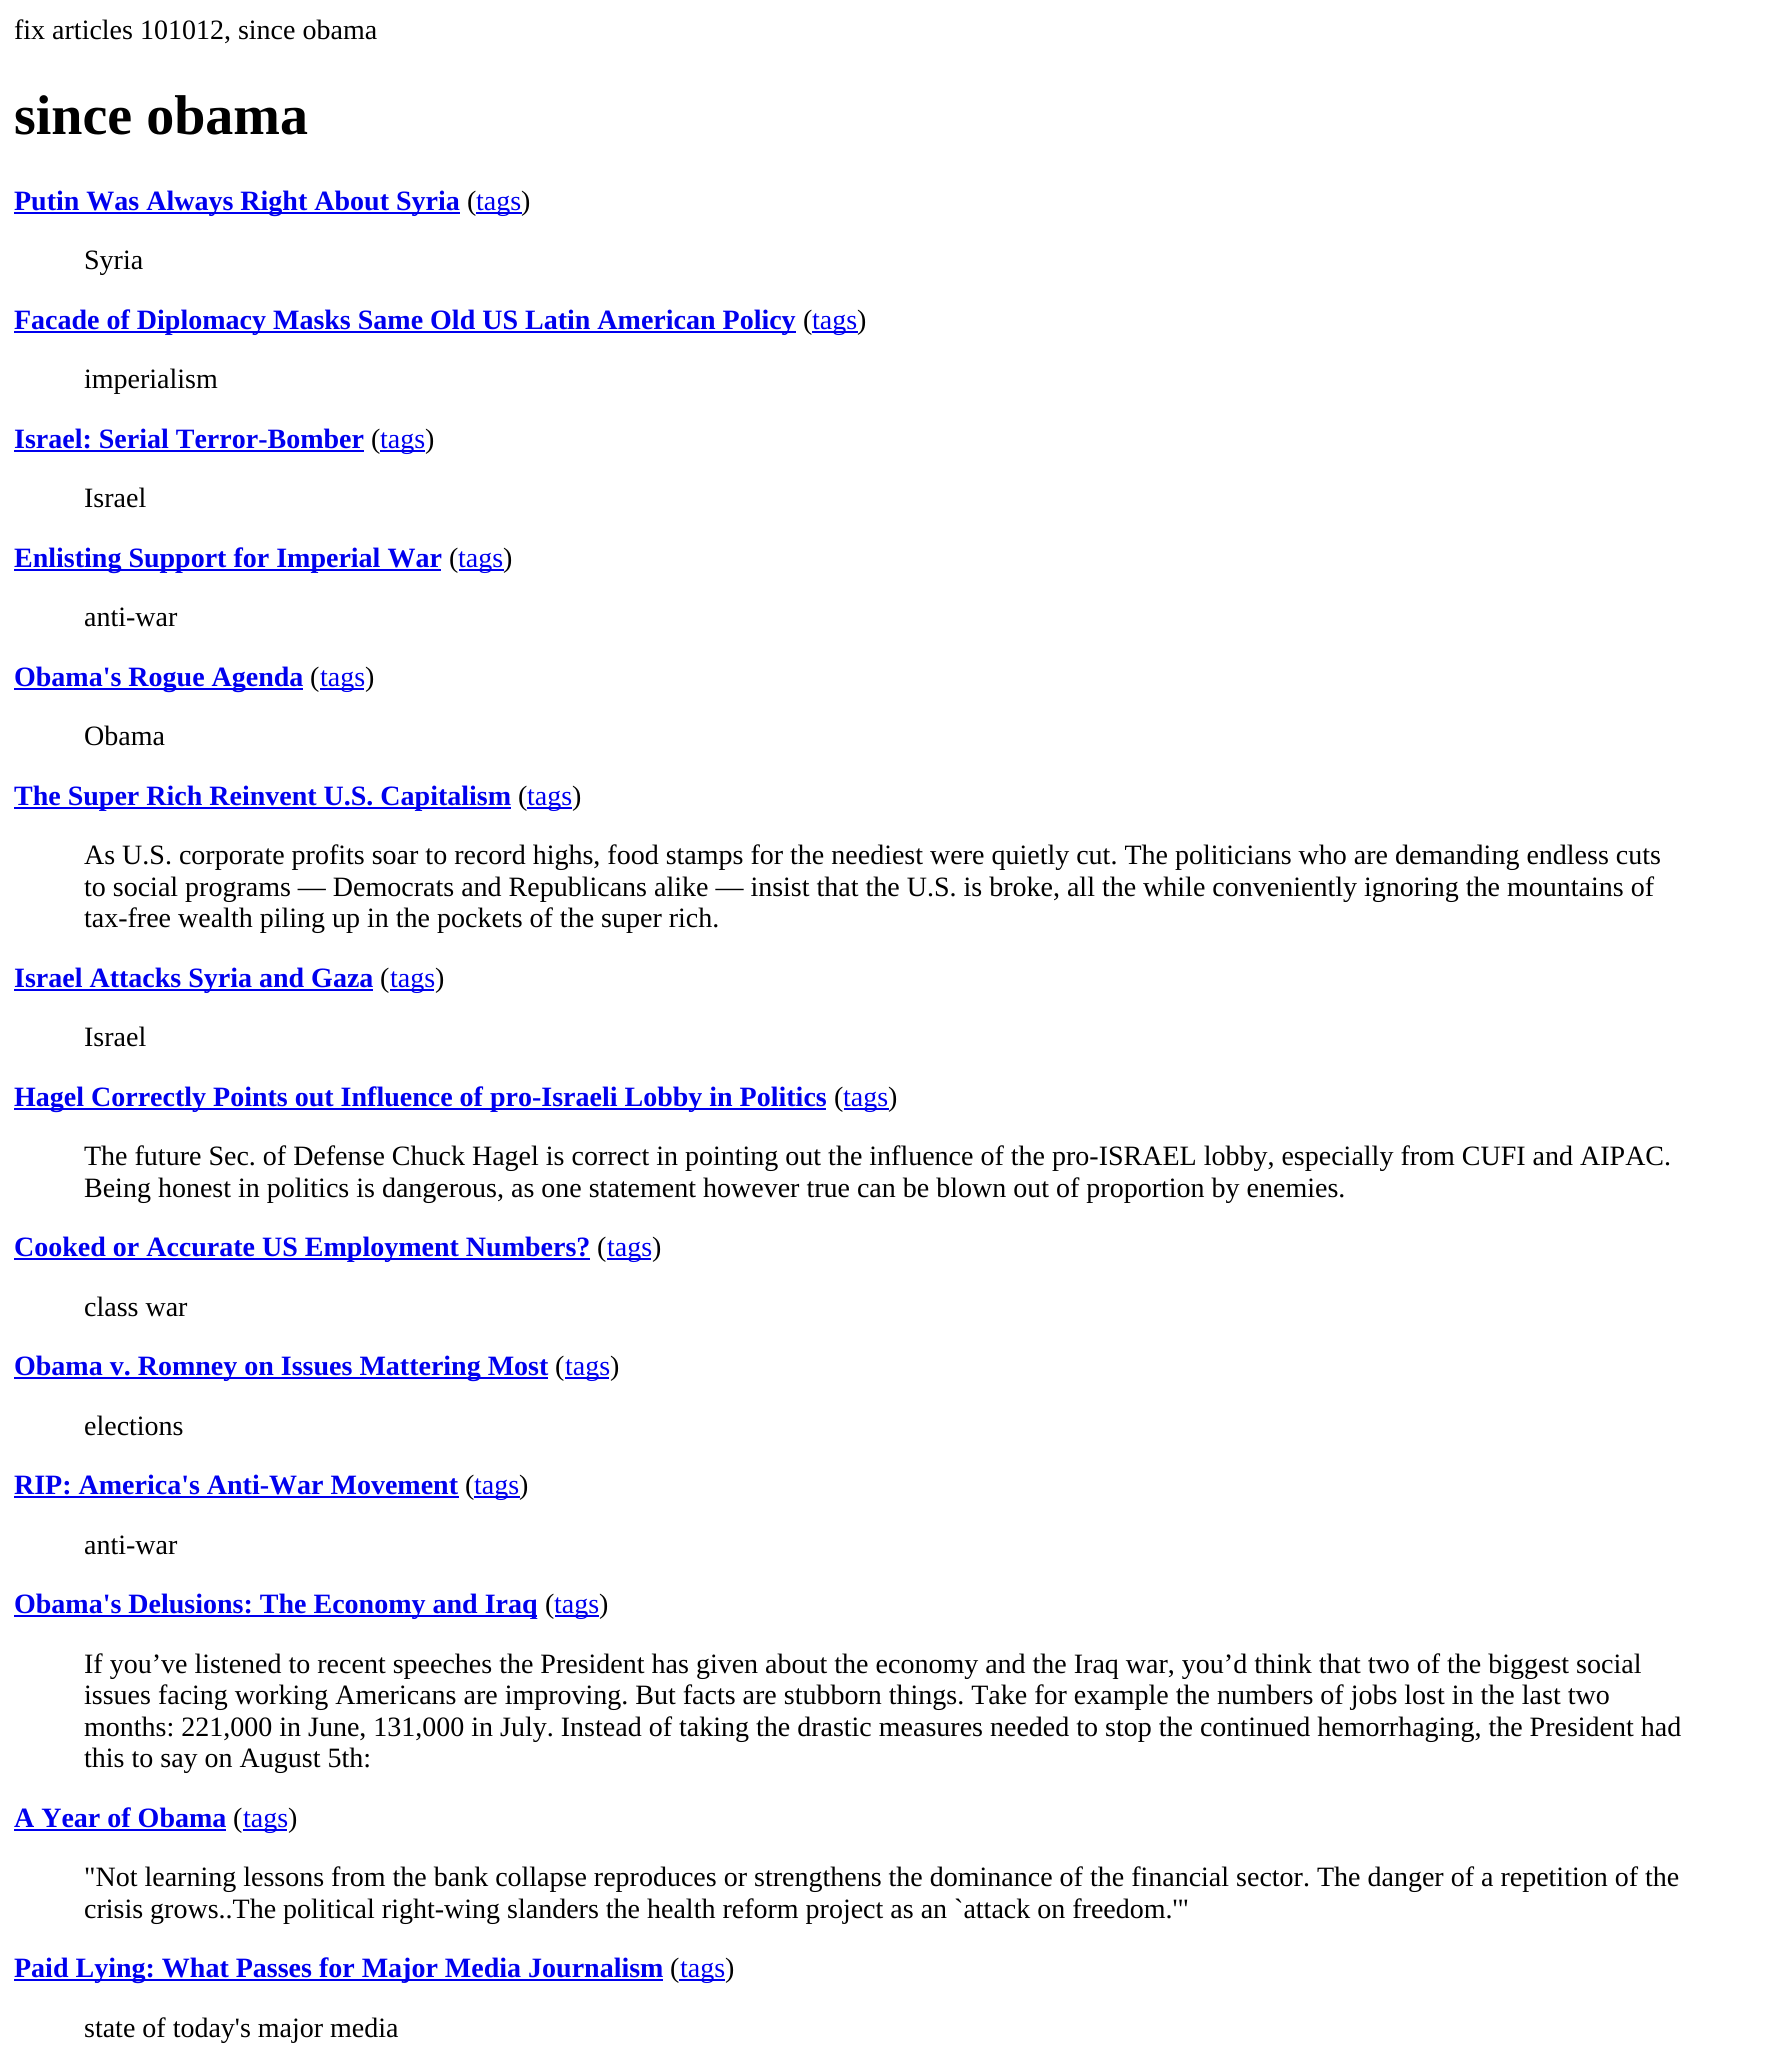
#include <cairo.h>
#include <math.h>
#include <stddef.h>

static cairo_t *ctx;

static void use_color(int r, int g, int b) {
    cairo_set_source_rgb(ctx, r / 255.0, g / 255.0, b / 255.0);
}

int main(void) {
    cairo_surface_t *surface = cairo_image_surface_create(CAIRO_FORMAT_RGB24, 1766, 2064);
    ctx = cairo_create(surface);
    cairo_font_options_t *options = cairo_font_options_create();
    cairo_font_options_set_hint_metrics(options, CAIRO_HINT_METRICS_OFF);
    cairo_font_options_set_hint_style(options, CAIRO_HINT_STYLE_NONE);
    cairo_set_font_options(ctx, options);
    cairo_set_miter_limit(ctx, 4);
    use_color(255, 255, 255);
    cairo_paint(ctx);
    cairo_select_font_face(ctx, "Liberation Serif", CAIRO_FONT_SLANT_NORMAL, CAIRO_FONT_WEIGHT_NORMAL);
    cairo_set_font_size(ctx, 28);
    use_color(0, 0, 0);
    cairo_move_to(ctx, 14, 39);
    cairo_show_text(ctx, "fix articles 101012, since obama");
    cairo_select_font_face(ctx, "Liberation Serif", CAIRO_FONT_SLANT_NORMAL, CAIRO_FONT_WEIGHT_BOLD);
    cairo_set_font_size(ctx, 56);
    cairo_move_to(ctx, 14, 134);
    cairo_show_text(ctx, "since obama");
    use_color(0, 0, 238);
    cairo_rectangle(ctx, 14, 212, 446, 2);
    cairo_fill(ctx);
    cairo_set_font_size(ctx, 28);
    cairo_move_to(ctx, 14, 210);
    cairo_show_text(ctx, "Putin Was Always Right About Syria");
    cairo_select_font_face(ctx, "Liberation Serif", CAIRO_FONT_SLANT_NORMAL, CAIRO_FONT_WEIGHT_NORMAL);
    use_color(0, 0, 0);
    cairo_move_to(ctx, 467, 210);
    cairo_show_text(ctx, "(");
    use_color(0, 0, 238);
    cairo_rectangle(ctx, 476, 212, 46, 2);
    cairo_fill(ctx);
    cairo_move_to(ctx, 476, 210);
    cairo_show_text(ctx, "tags");
    use_color(0, 0, 0);
    cairo_move_to(ctx, 521, 210);
    cairo_show_text(ctx, ")");
    cairo_move_to(ctx, 84, 269);
    cairo_show_text(ctx, "Syria");
    use_color(0, 0, 238);
    cairo_rectangle(ctx, 14, 331, 782, 2);
    cairo_fill(ctx);
    cairo_select_font_face(ctx, "Liberation Serif", CAIRO_FONT_SLANT_NORMAL, CAIRO_FONT_WEIGHT_BOLD);
    cairo_move_to(ctx, 14, 329);
    cairo_show_text(ctx, "Facade of Diplomacy Masks Same Old US Latin American Policy");
    cairo_select_font_face(ctx, "Liberation Serif", CAIRO_FONT_SLANT_NORMAL, CAIRO_FONT_WEIGHT_NORMAL);
    use_color(0, 0, 0);
    cairo_move_to(ctx, 803, 329);
    cairo_show_text(ctx, "(");
    use_color(0, 0, 238);
    cairo_rectangle(ctx, 812, 331, 46, 2);
    cairo_fill(ctx);
    cairo_move_to(ctx, 812, 329);
    cairo_show_text(ctx, "tags");
    use_color(0, 0, 0);
    cairo_move_to(ctx, 857, 329);
    cairo_show_text(ctx, ")");
    cairo_move_to(ctx, 84, 388);
    cairo_show_text(ctx, "imperialism");
    cairo_select_font_face(ctx, "Liberation Serif", CAIRO_FONT_SLANT_NORMAL, CAIRO_FONT_WEIGHT_BOLD);
    use_color(0, 0, 238);
    cairo_move_to(ctx, 14, 448);
    cairo_show_text(ctx, "Israel: Serial Terror-Bomber");
    cairo_rectangle(ctx, 14, 450, 350, 2);
    cairo_fill(ctx);
    cairo_select_font_face(ctx, "Liberation Serif", CAIRO_FONT_SLANT_NORMAL, CAIRO_FONT_WEIGHT_NORMAL);
    use_color(0, 0, 0);
    cairo_move_to(ctx, 371, 448);
    cairo_show_text(ctx, "(");
    use_color(0, 0, 238);
    cairo_rectangle(ctx, 380, 450, 45, 2);
    cairo_fill(ctx);
    cairo_move_to(ctx, 380, 448);
    cairo_show_text(ctx, "tags");
    use_color(0, 0, 0);
    cairo_move_to(ctx, 425, 448);
    cairo_show_text(ctx, ")");
    cairo_move_to(ctx, 84, 507);
    cairo_show_text(ctx, "Israel");
    use_color(0, 0, 238);
    cairo_rectangle(ctx, 14, 569, 427, 2);
    cairo_fill(ctx);
    cairo_select_font_face(ctx, "Liberation Serif", CAIRO_FONT_SLANT_NORMAL, CAIRO_FONT_WEIGHT_BOLD);
    cairo_move_to(ctx, 14, 567);
    cairo_show_text(ctx, "Enlisting Support for Imperial War");
    cairo_select_font_face(ctx, "Liberation Serif", CAIRO_FONT_SLANT_NORMAL, CAIRO_FONT_WEIGHT_NORMAL);
    use_color(0, 0, 0);
    cairo_move_to(ctx, 449, 567);
    cairo_show_text(ctx, "(");
    use_color(0, 0, 238);
    cairo_rectangle(ctx, 459, 569, 45, 2);
    cairo_fill(ctx);
    cairo_move_to(ctx, 458, 567);
    cairo_show_text(ctx, "tags");
    use_color(0, 0, 0);
    cairo_move_to(ctx, 503, 567);
    cairo_show_text(ctx, ")");
    cairo_move_to(ctx, 84, 626);
    cairo_show_text(ctx, "anti-war");
    use_color(0, 0, 238);
    cairo_rectangle(ctx, 14, 688, 289, 2);
    cairo_fill(ctx);
    cairo_select_font_face(ctx, "Liberation Serif", CAIRO_FONT_SLANT_NORMAL, CAIRO_FONT_WEIGHT_BOLD);
    cairo_move_to(ctx, 14, 686);
    cairo_show_text(ctx, "Obama's Rogue Agenda");
    cairo_select_font_face(ctx, "Liberation Serif", CAIRO_FONT_SLANT_NORMAL, CAIRO_FONT_WEIGHT_NORMAL);
    use_color(0, 0, 0);
    cairo_move_to(ctx, 310, 686);
    cairo_show_text(ctx, "(");
    use_color(0, 0, 238);
    cairo_rectangle(ctx, 320, 688, 44, 2);
    cairo_fill(ctx);
    cairo_move_to(ctx, 320, 686);
    cairo_show_text(ctx, "tags");
    use_color(0, 0, 0);
    cairo_move_to(ctx, 365, 686);
    cairo_show_text(ctx, ")");
    cairo_move_to(ctx, 84, 745);
    cairo_show_text(ctx, "Obama");
    use_color(0, 0, 238);
    cairo_rectangle(ctx, 14, 807, 497, 2);
    cairo_fill(ctx);
    cairo_select_font_face(ctx, "Liberation Serif", CAIRO_FONT_SLANT_NORMAL, CAIRO_FONT_WEIGHT_BOLD);
    cairo_move_to(ctx, 14, 805);
    cairo_show_text(ctx, "The Super Rich Reinvent U.S. Capitalism");
    cairo_select_font_face(ctx, "Liberation Serif", CAIRO_FONT_SLANT_NORMAL, CAIRO_FONT_WEIGHT_NORMAL);
    use_color(0, 0, 0);
    cairo_move_to(ctx, 518, 805);
    cairo_show_text(ctx, "(");
    use_color(0, 0, 238);
    cairo_rectangle(ctx, 527, 807, 45, 2);
    cairo_fill(ctx);
    cairo_move_to(ctx, 527, 805);
    cairo_show_text(ctx, "tags");
    use_color(0, 0, 0);
    cairo_move_to(ctx, 572, 805);
    cairo_show_text(ctx, ")");
    cairo_move_to(ctx, 84, 864);
    cairo_show_text(ctx, "As U.S. corporate profits soar to record highs, food stamps for the neediest were quietly cut. The politicians who are demanding endless cuts");
    cairo_move_to(ctx, 84, 896);
    cairo_show_text(ctx, "to social programs — Democrats and Republicans alike — insist that the U.S. is broke, all the while conveniently ignoring the mountains of");
    cairo_move_to(ctx, 84, 927);
    cairo_show_text(ctx, "tax-free wealth piling up in the pockets of the super rich.");
    use_color(0, 0, 238);
    cairo_rectangle(ctx, 14, 989, 359, 2);
    cairo_fill(ctx);
    cairo_select_font_face(ctx, "Liberation Serif", CAIRO_FONT_SLANT_NORMAL, CAIRO_FONT_WEIGHT_BOLD);
    cairo_move_to(ctx, 14, 987);
    cairo_show_text(ctx, "Israel Attacks Syria and Gaza");
    cairo_select_font_face(ctx, "Liberation Serif", CAIRO_FONT_SLANT_NORMAL, CAIRO_FONT_WEIGHT_NORMAL);
    use_color(0, 0, 0);
    cairo_move_to(ctx, 380, 987);
    cairo_show_text(ctx, "(");
    use_color(0, 0, 238);
    cairo_rectangle(ctx, 390, 989, 44, 2);
    cairo_fill(ctx);
    cairo_move_to(ctx, 390, 987);
    cairo_show_text(ctx, "tags");
    use_color(0, 0, 0);
    cairo_move_to(ctx, 435, 987);
    cairo_show_text(ctx, ")");
    cairo_move_to(ctx, 84, 1046);
    cairo_show_text(ctx, "Israel");
    use_color(0, 0, 238);
    cairo_rectangle(ctx, 14, 1108, 812, 2);
    cairo_fill(ctx);
    cairo_select_font_face(ctx, "Liberation Serif", CAIRO_FONT_SLANT_NORMAL, CAIRO_FONT_WEIGHT_BOLD);
    cairo_move_to(ctx, 14, 1106);
    cairo_show_text(ctx, "Hagel Correctly Points out Influence of pro-Israeli Lobby in Politics");
    cairo_select_font_face(ctx, "Liberation Serif", CAIRO_FONT_SLANT_NORMAL, CAIRO_FONT_WEIGHT_NORMAL);
    use_color(0, 0, 0);
    cairo_move_to(ctx, 834, 1106);
    cairo_show_text(ctx, "(");
    use_color(0, 0, 238);
    cairo_rectangle(ctx, 844, 1108, 45, 2);
    cairo_fill(ctx);
    cairo_move_to(ctx, 843, 1106);
    cairo_show_text(ctx, "tags");
    use_color(0, 0, 0);
    cairo_move_to(ctx, 888, 1106);
    cairo_show_text(ctx, ")");
    cairo_move_to(ctx, 84, 1165);
    cairo_show_text(ctx, "The future Sec. of Defense Chuck Hagel is correct in pointing out the influence of the pro-ISRAEL lobby, especially from CUFI and AIPAC.");
    cairo_move_to(ctx, 84, 1197);
    cairo_show_text(ctx, "Being honest in politics is dangerous, as one statement however true can be blown out of proportion by enemies.");
    use_color(0, 0, 238);
    cairo_rectangle(ctx, 14, 1258, 576, 2);
    cairo_fill(ctx);
    cairo_select_font_face(ctx, "Liberation Serif", CAIRO_FONT_SLANT_NORMAL, CAIRO_FONT_WEIGHT_BOLD);
    cairo_move_to(ctx, 14, 1256);
    cairo_show_text(ctx, "Cooked or Accurate US Employment Numbers?");
    cairo_select_font_face(ctx, "Liberation Serif", CAIRO_FONT_SLANT_NORMAL, CAIRO_FONT_WEIGHT_NORMAL);
    use_color(0, 0, 0);
    cairo_move_to(ctx, 597, 1256);
    cairo_show_text(ctx, "(");
    use_color(0, 0, 238);
    cairo_rectangle(ctx, 607, 1258, 44, 2);
    cairo_fill(ctx);
    cairo_move_to(ctx, 607, 1256);
    cairo_show_text(ctx, "tags");
    use_color(0, 0, 0);
    cairo_move_to(ctx, 652, 1256);
    cairo_show_text(ctx, ")");
    cairo_move_to(ctx, 84, 1316);
    cairo_show_text(ctx, "class war");
    use_color(0, 0, 238);
    cairo_rectangle(ctx, 14, 1377, 534, 2);
    cairo_fill(ctx);
    cairo_select_font_face(ctx, "Liberation Serif", CAIRO_FONT_SLANT_NORMAL, CAIRO_FONT_WEIGHT_BOLD);
    cairo_move_to(ctx, 14, 1375);
    cairo_show_text(ctx, "Obama v. Romney on Issues Mattering Most");
    cairo_select_font_face(ctx, "Liberation Serif", CAIRO_FONT_SLANT_NORMAL, CAIRO_FONT_WEIGHT_NORMAL);
    use_color(0, 0, 0);
    cairo_move_to(ctx, 555, 1375);
    cairo_show_text(ctx, "(");
    use_color(0, 0, 238);
    cairo_rectangle(ctx, 565, 1377, 44, 2);
    cairo_fill(ctx);
    cairo_move_to(ctx, 565, 1375);
    cairo_show_text(ctx, "tags");
    use_color(0, 0, 0);
    cairo_move_to(ctx, 610, 1375);
    cairo_show_text(ctx, ")");
    cairo_move_to(ctx, 84, 1435);
    cairo_show_text(ctx, "elections");
    cairo_select_font_face(ctx, "Liberation Serif", CAIRO_FONT_SLANT_NORMAL, CAIRO_FONT_WEIGHT_BOLD);
    use_color(0, 0, 238);
    cairo_move_to(ctx, 14, 1494);
    cairo_show_text(ctx, "RIP: America's Anti-War Movement");
    cairo_rectangle(ctx, 14, 1496, 445, 2);
    cairo_fill(ctx);
    cairo_select_font_face(ctx, "Liberation Serif", CAIRO_FONT_SLANT_NORMAL, CAIRO_FONT_WEIGHT_NORMAL);
    use_color(0, 0, 0);
    cairo_move_to(ctx, 465, 1494);
    cairo_show_text(ctx, "(");
    use_color(0, 0, 238);
    cairo_rectangle(ctx, 474, 1496, 46, 2);
    cairo_fill(ctx);
    cairo_move_to(ctx, 474, 1494);
    cairo_show_text(ctx, "tags");
    use_color(0, 0, 0);
    cairo_move_to(ctx, 519, 1494);
    cairo_show_text(ctx, ")");
    cairo_move_to(ctx, 84, 1554);
    cairo_show_text(ctx, "anti-war");
    use_color(0, 0, 238);
    cairo_rectangle(ctx, 14, 1615, 523, 2);
    cairo_fill(ctx);
    cairo_select_font_face(ctx, "Liberation Serif", CAIRO_FONT_SLANT_NORMAL, CAIRO_FONT_WEIGHT_BOLD);
    cairo_move_to(ctx, 14, 1613);
    cairo_show_text(ctx, "Obama's Delusions: The Economy and Iraq");
    cairo_select_font_face(ctx, "Liberation Serif", CAIRO_FONT_SLANT_NORMAL, CAIRO_FONT_WEIGHT_NORMAL);
    use_color(0, 0, 0);
    cairo_move_to(ctx, 545, 1613);
    cairo_show_text(ctx, "(");
    use_color(0, 0, 238);
    cairo_rectangle(ctx, 555, 1615, 44, 2);
    cairo_fill(ctx);
    cairo_move_to(ctx, 554, 1613);
    cairo_show_text(ctx, "tags");
    use_color(0, 0, 0);
    cairo_move_to(ctx, 599, 1613);
    cairo_show_text(ctx, ")");
    cairo_move_to(ctx, 84, 1673);
    cairo_show_text(ctx, "If you’ve listened to recent speeches the President has given about the economy and the Iraq war, you’d think that two of the biggest social");
    cairo_move_to(ctx, 84, 1704);
    cairo_show_text(ctx, "issues facing working Americans are improving. But facts are stubborn things. Take for example the numbers of jobs lost in the last two");
    cairo_move_to(ctx, 84, 1736);
    cairo_show_text(ctx, "months: 221,000 in June, 131,000 in July. Instead of taking the drastic measures needed to stop the continued hemorrhaging, the President had");
    cairo_move_to(ctx, 84, 1767);
    cairo_show_text(ctx, "this to say on August 5th:");
    cairo_select_font_face(ctx, "Liberation Serif", CAIRO_FONT_SLANT_NORMAL, CAIRO_FONT_WEIGHT_BOLD);
    use_color(0, 0, 238);
    cairo_move_to(ctx, 14, 1827);
    cairo_show_text(ctx, "A Year of Obama");
    cairo_rectangle(ctx, 14, 1829, 212, 2);
    cairo_fill(ctx);
    cairo_select_font_face(ctx, "Liberation Serif", CAIRO_FONT_SLANT_NORMAL, CAIRO_FONT_WEIGHT_NORMAL);
    use_color(0, 0, 0);
    cairo_move_to(ctx, 233, 1827);
    cairo_show_text(ctx, "(");
    use_color(0, 0, 238);
    cairo_rectangle(ctx, 243, 1829, 44, 2);
    cairo_fill(ctx);
    cairo_move_to(ctx, 243, 1827);
    cairo_show_text(ctx, "tags");
    use_color(0, 0, 0);
    cairo_move_to(ctx, 288, 1827);
    cairo_show_text(ctx, ")");
    cairo_move_to(ctx, 84, 1886);
    cairo_show_text(ctx, "\"Not learning lessons from the bank collapse reproduces or strengthens the dominance of the financial sector. The danger of a repetition of the");
    cairo_move_to(ctx, 84, 1918);
    cairo_show_text(ctx, "crisis grows..The political right-wing slanders the health reform project as an `attack on freedom.'\"");
    use_color(0, 0, 238);
    cairo_rectangle(ctx, 14, 1979, 649, 2);
    cairo_fill(ctx);
    cairo_select_font_face(ctx, "Liberation Serif", CAIRO_FONT_SLANT_NORMAL, CAIRO_FONT_WEIGHT_BOLD);
    cairo_move_to(ctx, 14, 1977);
    cairo_show_text(ctx, "Paid Lying: What Passes for Major Media Journalism");
    cairo_select_font_face(ctx, "Liberation Serif", CAIRO_FONT_SLANT_NORMAL, CAIRO_FONT_WEIGHT_NORMAL);
    use_color(0, 0, 0);
    cairo_move_to(ctx, 670, 1977);
    cairo_show_text(ctx, "(");
    use_color(0, 0, 238);
    cairo_rectangle(ctx, 679, 1979, 46, 2);
    cairo_fill(ctx);
    cairo_move_to(ctx, 680, 1977);
    cairo_show_text(ctx, "tags");
    use_color(0, 0, 0);
    cairo_move_to(ctx, 725, 1977);
    cairo_show_text(ctx, ")");
    cairo_move_to(ctx, 84, 2037);
    cairo_show_text(ctx, "state of today's major media");
    cairo_surface_write_to_png(surface, "result.png");
    cairo_font_options_destroy(options);
    cairo_destroy(ctx);
    cairo_surface_destroy(surface);
    return 0;
}
